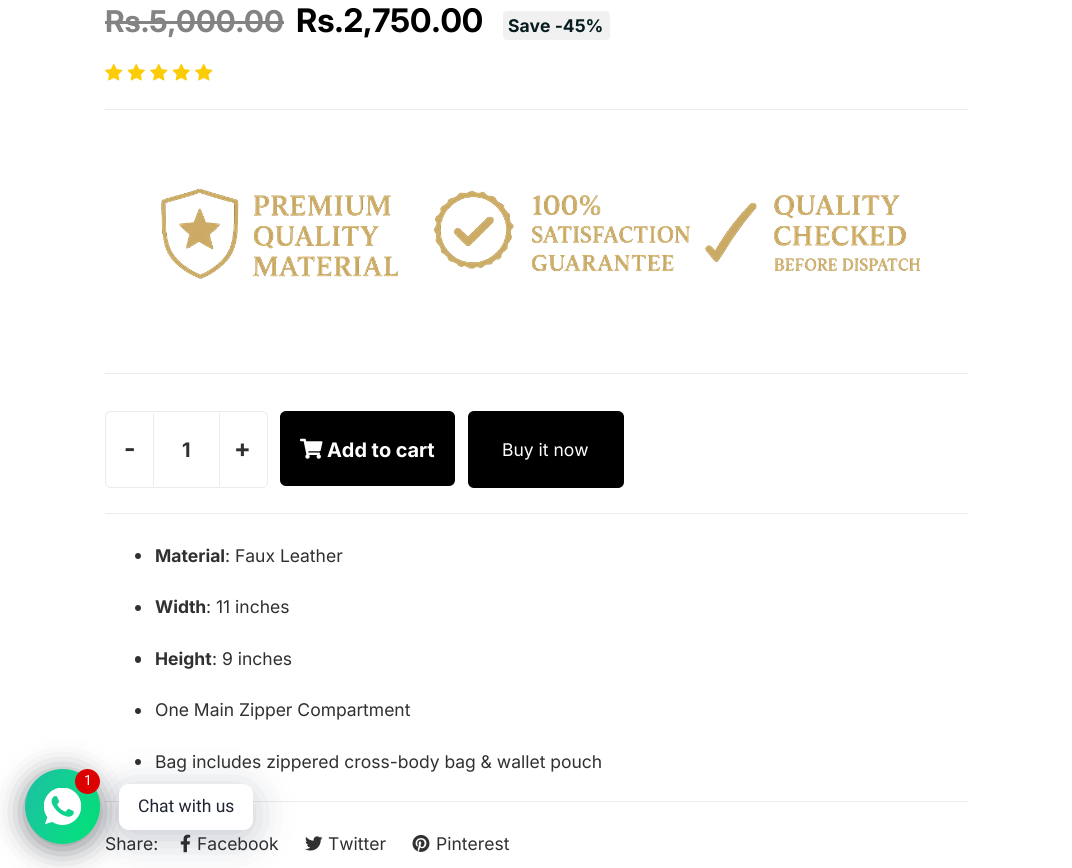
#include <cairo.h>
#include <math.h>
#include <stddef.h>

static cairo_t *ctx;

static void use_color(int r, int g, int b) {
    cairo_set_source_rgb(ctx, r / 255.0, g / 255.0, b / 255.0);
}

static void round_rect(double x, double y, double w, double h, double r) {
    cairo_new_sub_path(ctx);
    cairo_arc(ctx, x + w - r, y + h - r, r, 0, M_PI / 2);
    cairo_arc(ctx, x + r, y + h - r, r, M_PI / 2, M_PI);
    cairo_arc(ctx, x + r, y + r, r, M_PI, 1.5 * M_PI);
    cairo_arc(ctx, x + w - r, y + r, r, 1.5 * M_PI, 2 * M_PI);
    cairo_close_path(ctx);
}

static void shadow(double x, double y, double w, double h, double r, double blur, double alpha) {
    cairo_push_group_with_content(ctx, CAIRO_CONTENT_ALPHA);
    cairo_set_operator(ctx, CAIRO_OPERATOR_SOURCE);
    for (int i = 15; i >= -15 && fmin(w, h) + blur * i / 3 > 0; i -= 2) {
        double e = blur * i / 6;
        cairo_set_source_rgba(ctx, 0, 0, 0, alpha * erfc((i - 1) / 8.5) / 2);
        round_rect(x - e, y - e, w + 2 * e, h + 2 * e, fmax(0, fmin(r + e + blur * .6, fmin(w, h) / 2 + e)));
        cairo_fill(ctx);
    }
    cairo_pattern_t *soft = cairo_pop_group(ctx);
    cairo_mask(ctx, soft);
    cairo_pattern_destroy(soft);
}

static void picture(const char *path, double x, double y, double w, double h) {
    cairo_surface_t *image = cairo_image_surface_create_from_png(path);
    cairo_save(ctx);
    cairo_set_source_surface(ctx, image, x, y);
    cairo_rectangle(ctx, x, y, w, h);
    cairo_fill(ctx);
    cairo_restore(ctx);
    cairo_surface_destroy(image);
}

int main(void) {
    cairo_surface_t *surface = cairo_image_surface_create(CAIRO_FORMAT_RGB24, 1072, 868);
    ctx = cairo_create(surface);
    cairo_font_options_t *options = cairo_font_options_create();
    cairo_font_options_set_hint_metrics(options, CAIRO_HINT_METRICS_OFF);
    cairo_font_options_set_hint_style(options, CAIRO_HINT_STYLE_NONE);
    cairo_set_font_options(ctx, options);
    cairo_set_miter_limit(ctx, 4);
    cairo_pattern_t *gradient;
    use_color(255, 255, 255);
    cairo_paint(ctx);
    cairo_select_font_face(ctx, "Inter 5", CAIRO_FONT_SLANT_NORMAL, CAIRO_FONT_WEIGHT_BOLD);
    cairo_set_font_size(ctx, 30);
    use_color(131, 131, 131);
    cairo_move_to(ctx, 105, 32);
    cairo_show_text(ctx, "Rs.5,000.00");
    cairo_rectangle(ctx, 105, 21, 179, 3);
    cairo_fill(ctx);
    cairo_select_font_face(ctx, "Inter", CAIRO_FONT_SLANT_NORMAL, CAIRO_FONT_WEIGHT_BOLD);
    cairo_set_font_size(ctx, 32.5);
    use_color(0, 0, 0);
    cairo_move_to(ctx, 296, 32);
    cairo_show_text(ctx, "Rs.2,750.00");
    use_color(241, 241, 241);
    cairo_new_path(ctx);
    cairo_move_to(ctx, 507, 11);
    cairo_line_to(ctx, 555, 11);
    cairo_line_to(ctx, 555, 40);
    cairo_line_to(ctx, 507, 40);
    cairo_curve_to(ctx, 505, 40, 503, 38, 503, 36);
    cairo_line_to(ctx, 503, 15);
    cairo_curve_to(ctx, 503, 13, 505, 11, 507, 11);
    cairo_close_path(ctx);
    cairo_fill(ctx);
    cairo_rectangle(ctx, 555, 11, 31, 29);
    cairo_fill(ctx);
    cairo_new_path(ctx);
    cairo_move_to(ctx, 586, 11);
    cairo_line_to(ctx, 606, 11);
    cairo_curve_to(ctx, 608, 11, 610, 13, 610, 15);
    cairo_line_to(ctx, 610, 36);
    cairo_curve_to(ctx, 610, 38, 608, 40, 606, 40);
    cairo_line_to(ctx, 586, 40);
    cairo_close_path(ctx);
    cairo_fill(ctx);
    cairo_select_font_face(ctx, "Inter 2", CAIRO_FONT_SLANT_NORMAL, CAIRO_FONT_WEIGHT_BOLD);
    cairo_set_font_size(ctx, 17.5);
    use_color(7, 28, 31);
    cairo_move_to(ctx, 508, 32);
    cairo_show_text(ctx, "Save -45%");
    picture("img1.png", 105, 63, 18, 18);
    picture("img2.png", 127, 63, 18, 18);
    picture("img1.png", 150, 63, 18, 18);
    picture("img2.png", 172, 63, 18, 18);
    picture("img1.png", 195, 63, 18, 18);
    use_color(235, 235, 235);
    cairo_rectangle(ctx, 105, 109, 863, 1);
    cairo_fill(ctx);
    picture("img3.png", 161, 188, 760, 91);
    cairo_rectangle(ctx, 105, 373, 863, 1);
    cairo_fill(ctx);
    round_rect(105.5, 411.5, 162, 76, 5.5);
    cairo_set_line_width(ctx, 1);
    cairo_stroke(ctx);
    cairo_rectangle(ctx, 153, 413, 1, 73);
    cairo_fill(ctx);
    cairo_select_font_face(ctx, "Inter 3", CAIRO_FONT_SLANT_NORMAL, CAIRO_FONT_WEIGHT_BOLD);
    cairo_set_font_size(ctx, 25);
    use_color(48, 48, 48);
    cairo_move_to(ctx, 124, 457);
    cairo_show_text(ctx, "-");
    cairo_select_font_face(ctx, "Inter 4", CAIRO_FONT_SLANT_NORMAL, CAIRO_FONT_WEIGHT_BOLD);
    cairo_set_font_size(ctx, 20);
    cairo_move_to(ctx, 182, 457);
    cairo_show_text(ctx, "1");
    use_color(235, 235, 235);
    cairo_rectangle(ctx, 219, 413, 1, 73);
    cairo_fill(ctx);
    cairo_select_font_face(ctx, "Inter 3", CAIRO_FONT_SLANT_NORMAL, CAIRO_FONT_WEIGHT_BOLD);
    cairo_set_font_size(ctx, 25);
    use_color(48, 48, 48);
    cairo_move_to(ctx, 234, 457);
    cairo_show_text(ctx, "+");
    use_color(0, 0, 0);
    round_rect(280, 411, 175, 75, 6);
    cairo_fill(ctx);
    picture("img4.png", 300, 438, 23, 21);
    cairo_select_font_face(ctx, "Inter 4", CAIRO_FONT_SLANT_NORMAL, CAIRO_FONT_WEIGHT_BOLD);
    cairo_set_font_size(ctx, 20);
    use_color(255, 255, 255);
    cairo_move_to(ctx, 327, 457);
    cairo_show_text(ctx, "Add to cart");
    use_color(0, 0, 0);
    round_rect(468, 411, 156, 77, 6);
    cairo_fill(ctx);
    cairo_select_font_face(ctx, "Inter", CAIRO_FONT_SLANT_NORMAL, CAIRO_FONT_WEIGHT_NORMAL);
    cairo_set_font_size(ctx, 17.5);
    use_color(255, 255, 255);
    cairo_move_to(ctx, 502, 456);
    cairo_show_text(ctx, "Buy it now");
    use_color(235, 235, 235);
    cairo_rectangle(ctx, 105, 513, 863, 1);
    cairo_fill(ctx);
    use_color(48, 48, 48);
    cairo_arc(ctx, 138, 556, 3, 0, 2 * M_PI);
    cairo_fill(ctx);
    cairo_select_font_face(ctx, "Inter 2", CAIRO_FONT_SLANT_NORMAL, CAIRO_FONT_WEIGHT_BOLD);
    cairo_move_to(ctx, 155, 562);
    cairo_show_text(ctx, "Material");
    cairo_select_font_face(ctx, "Inter", CAIRO_FONT_SLANT_NORMAL, CAIRO_FONT_WEIGHT_NORMAL);
    cairo_move_to(ctx, 225, 562);
    cairo_show_text(ctx, ": Faux Leather");
    cairo_new_path(ctx);
    cairo_arc(ctx, 138, 608, 3, 0, 2 * M_PI);
    cairo_fill(ctx);
    cairo_select_font_face(ctx, "Inter 2", CAIRO_FONT_SLANT_NORMAL, CAIRO_FONT_WEIGHT_BOLD);
    cairo_move_to(ctx, 155, 613);
    cairo_show_text(ctx, "Width");
    cairo_select_font_face(ctx, "Inter", CAIRO_FONT_SLANT_NORMAL, CAIRO_FONT_WEIGHT_NORMAL);
    cairo_move_to(ctx, 206, 613);
    cairo_show_text(ctx, ": 11 inches");
    round_rect(135, 656, 6, 7, 3);
    cairo_fill(ctx);
    cairo_select_font_face(ctx, "Inter 2", CAIRO_FONT_SLANT_NORMAL, CAIRO_FONT_WEIGHT_BOLD);
    cairo_move_to(ctx, 155, 665);
    cairo_show_text(ctx, "Height");
    cairo_select_font_face(ctx, "Inter", CAIRO_FONT_SLANT_NORMAL, CAIRO_FONT_WEIGHT_NORMAL);
    cairo_move_to(ctx, 212, 665);
    cairo_show_text(ctx, ": 9 inches");
    cairo_new_path(ctx);
    cairo_arc(ctx, 138, 711, 3, 0, 2 * M_PI);
    cairo_fill(ctx);
    cairo_move_to(ctx, 155, 716);
    cairo_show_text(ctx, "One Main Zipper Compartment");
    cairo_new_path(ctx);
    cairo_arc(ctx, 138, 762, 3, 0, 2 * M_PI);
    cairo_fill(ctx);
    cairo_move_to(ctx, 155, 768);
    cairo_show_text(ctx, "Bag includes zippered cross-body bag & wallet pouch");
    use_color(235, 235, 235);
    cairo_rectangle(ctx, 105, 801, 863, 1);
    cairo_fill(ctx);
    use_color(48, 48, 48);
    cairo_move_to(ctx, 105, 850);
    cairo_show_text(ctx, "Share:");
    picture("img5.png", 180, 834, 11, 19);
    cairo_move_to(ctx, 197, 850);
    cairo_show_text(ctx, "Facebook");
    picture("img6.png", 305, 836, 18, 15);
    cairo_move_to(ctx, 328, 850);
    cairo_show_text(ctx, "Twitter");
    picture("img7.png", 412, 835, 18, 17);
    cairo_move_to(ctx, 436, 850);
    cairo_show_text(ctx, "Pinterest");
    use_color(2, 6, 16);
    shadow(25, 774, 75, 75, 37.5, 15, 0.5);
    gradient = cairo_pattern_create_linear(17, 785, 108, 827);
    cairo_pattern_add_color_stop_rgba(gradient, 0, 0.118, 0.745, 0.647, 1);
    cairo_pattern_add_color_stop_rgba(gradient, 1, 0.004, 0.902, 0.467, 1);
    cairo_set_source(ctx, gradient);
    cairo_pattern_destroy(gradient);
    cairo_arc(ctx, 62.5, 806.5, 37.5, 0, 2 * M_PI);
    cairo_fill(ctx);
    use_color(0, 18, 46);
    shadow(119, 791, 134, 47, 10, 20, 0.24);
    picture("img8.png", 44, 788, 37, 37);
    use_color(221, 0, 0);
    cairo_arc(ctx, 87.5, 781.5, 12.5, 0, 2 * M_PI);
    cairo_fill(ctx);
    cairo_select_font_face(ctx, "Roboto", CAIRO_FONT_SLANT_NORMAL, CAIRO_FONT_WEIGHT_NORMAL);
    cairo_set_font_size(ctx, 14);
    use_color(255, 255, 255);
    cairo_move_to(ctx, 84, 785);
    cairo_show_text(ctx, "1");
    round_rect(119, 784, 134, 46, 10);
    cairo_fill(ctx);
    cairo_set_font_size(ctx, 17.5);
    use_color(30, 36, 51);
    cairo_move_to(ctx, 138, 812);
    cairo_show_text(ctx, "Chat with us");
    cairo_surface_write_to_png(surface, "result.png");
    cairo_font_options_destroy(options);
    cairo_destroy(ctx);
    cairo_surface_destroy(surface);
    return 0;
}
